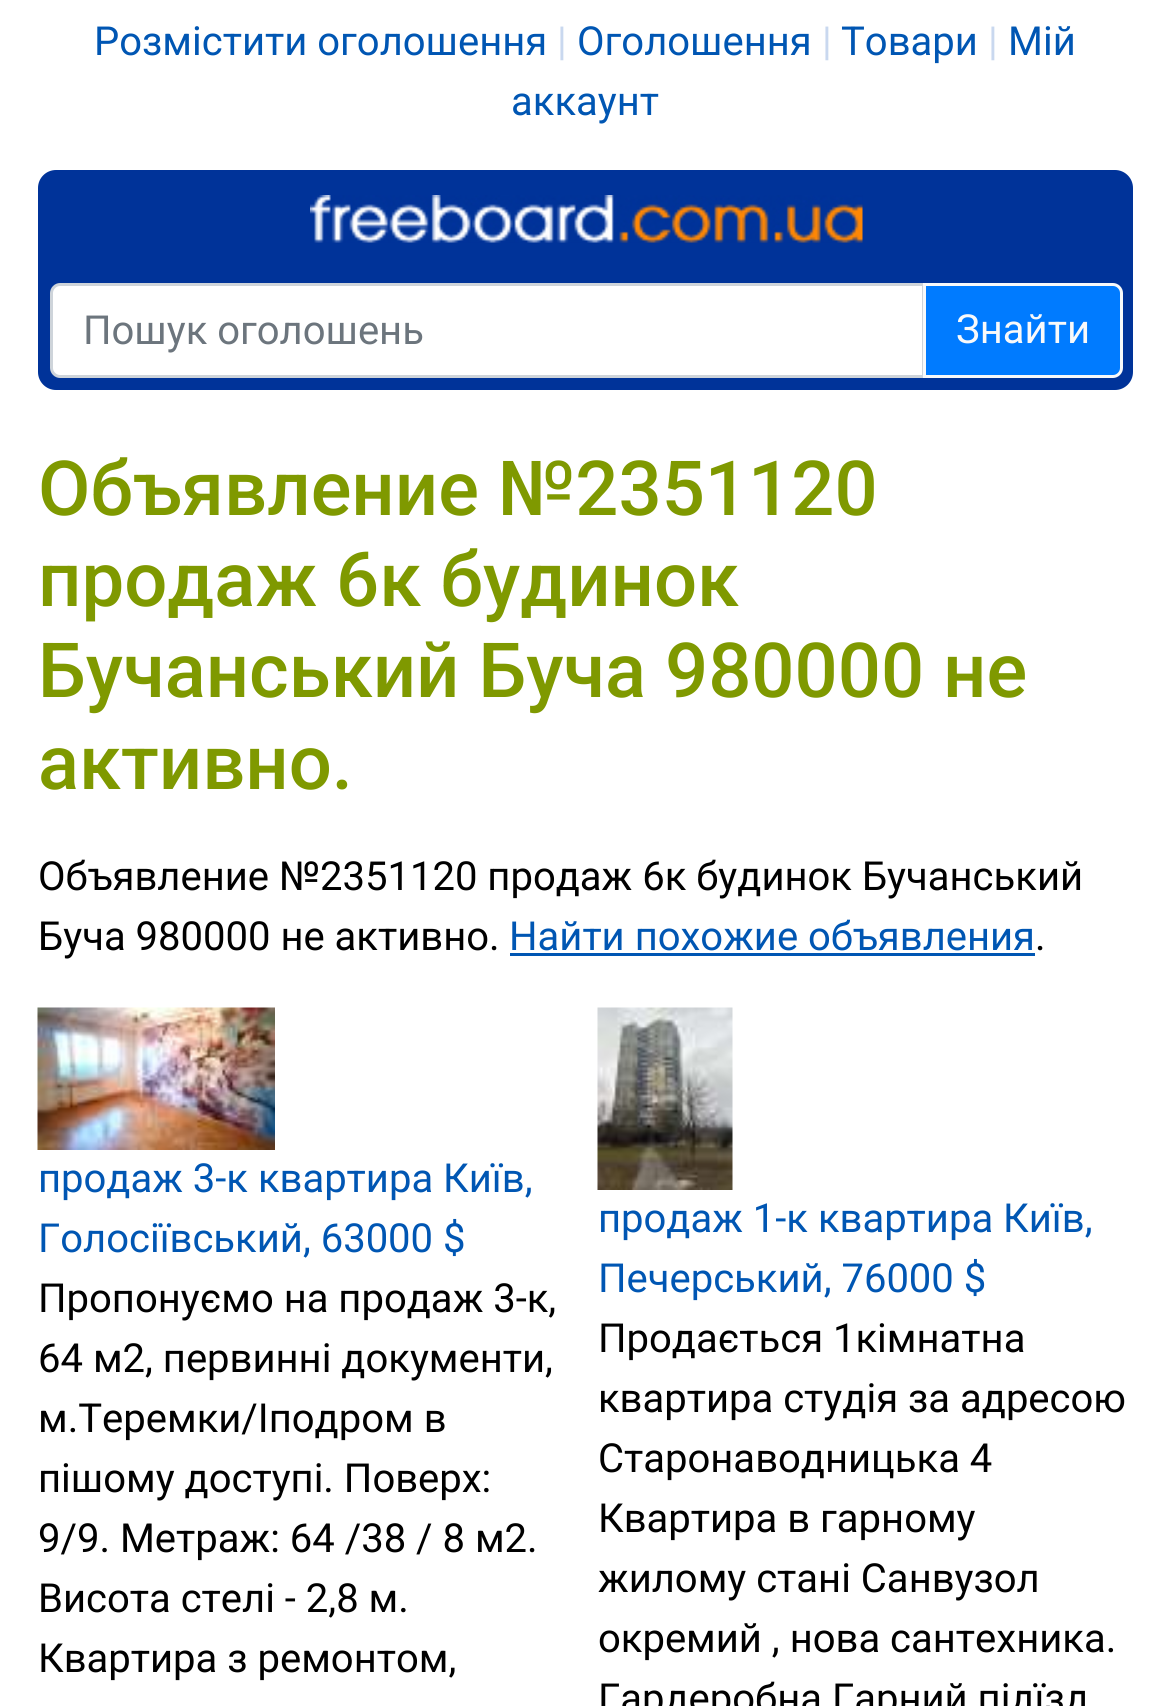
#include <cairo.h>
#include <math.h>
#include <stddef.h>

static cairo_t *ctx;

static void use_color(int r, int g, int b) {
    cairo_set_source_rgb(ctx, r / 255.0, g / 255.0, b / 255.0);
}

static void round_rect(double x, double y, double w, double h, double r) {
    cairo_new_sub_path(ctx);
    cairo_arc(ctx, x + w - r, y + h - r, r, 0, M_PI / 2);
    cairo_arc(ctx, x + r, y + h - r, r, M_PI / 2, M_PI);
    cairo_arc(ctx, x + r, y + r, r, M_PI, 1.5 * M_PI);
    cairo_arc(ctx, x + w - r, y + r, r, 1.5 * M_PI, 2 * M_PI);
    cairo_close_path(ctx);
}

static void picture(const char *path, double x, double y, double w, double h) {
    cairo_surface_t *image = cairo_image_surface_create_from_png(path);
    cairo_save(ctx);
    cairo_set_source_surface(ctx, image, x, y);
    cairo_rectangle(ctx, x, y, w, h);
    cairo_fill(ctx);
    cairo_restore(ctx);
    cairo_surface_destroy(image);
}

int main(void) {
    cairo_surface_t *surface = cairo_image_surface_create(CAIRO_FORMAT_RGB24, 1170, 1706);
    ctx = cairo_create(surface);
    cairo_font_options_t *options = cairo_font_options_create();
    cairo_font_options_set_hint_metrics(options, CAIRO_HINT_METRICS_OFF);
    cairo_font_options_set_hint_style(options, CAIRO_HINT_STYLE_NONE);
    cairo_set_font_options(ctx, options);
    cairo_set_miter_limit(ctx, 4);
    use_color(255, 255, 255);
    cairo_paint(ctx);
    cairo_select_font_face(ctx, "Roboto", CAIRO_FONT_SLANT_NORMAL, CAIRO_FONT_WEIGHT_NORMAL);
    cairo_set_font_size(ctx, 40);
    use_color(0, 86, 179);
    cairo_move_to(ctx, 94, 55);
    cairo_show_text(ctx, "Розмістити оголошення");
    use_color(201, 216, 239);
    cairo_move_to(ctx, 557, 55);
    cairo_show_text(ctx, "|");
    use_color(0, 86, 179);
    cairo_move_to(ctx, 577, 55);
    cairo_show_text(ctx, "Оголошення");
    use_color(201, 216, 239);
    cairo_move_to(ctx, 822, 55);
    cairo_show_text(ctx, "|");
    use_color(0, 86, 179);
    cairo_move_to(ctx, 841, 55);
    cairo_show_text(ctx, "Товари");
    use_color(201, 216, 239);
    cairo_move_to(ctx, 988, 55);
    cairo_show_text(ctx, "|");
    use_color(0, 86, 179);
    cairo_move_to(ctx, 1008, 55);
    cairo_show_text(ctx, "Мій");
    cairo_move_to(ctx, 511, 115);
    cairo_show_text(ctx, "аккаунт");
    use_color(0, 51, 153);
    round_rect(38, 170, 1095, 220, 18);
    cairo_fill(ctx);
    picture("img1.png", 310, 195, 553, 48);
    use_color(255, 255, 255);
    cairo_new_path(ctx);
    cairo_move_to(ctx, 60, 284.5);
    cairo_line_to(ctx, 923.5, 284.5);
    cairo_line_to(ctx, 923.5, 376.5);
    cairo_line_to(ctx, 60, 376.5);
    cairo_curve_to(ctx, 55.5, 376.5, 51.5, 372.5, 51.5, 368);
    cairo_line_to(ctx, 51.5, 293);
    cairo_curve_to(ctx, 51.5, 288.5, 55.5, 284.5, 60, 284.5);
    cairo_close_path(ctx);
    cairo_fill_preserve(ctx);
    use_color(206, 212, 218);
    cairo_set_line_width(ctx, 3);
    cairo_stroke(ctx);
    use_color(108, 117, 125);
    cairo_move_to(ctx, 83, 344);
    cairo_show_text(ctx, "Пошук оголошень");
    use_color(0, 123, 255);
    cairo_new_path(ctx);
    cairo_move_to(ctx, 924.5, 284.5);
    cairo_line_to(ctx, 1113, 284.5);
    cairo_curve_to(ctx, 1117.5, 284.5, 1121.5, 288.5, 1121.5, 293);
    cairo_line_to(ctx, 1121.5, 368);
    cairo_curve_to(ctx, 1121.5, 372.5, 1117.5, 376.5, 1113, 376.5);
    cairo_line_to(ctx, 924.5, 376.5);
    cairo_close_path(ctx);
    cairo_fill_preserve(ctx);
    use_color(248, 249, 250);
    cairo_stroke(ctx);
    cairo_move_to(ctx, 956, 343);
    cairo_show_text(ctx, "Знайти");
    cairo_select_font_face(ctx, "Roboto Medium", CAIRO_FONT_SLANT_NORMAL, CAIRO_FONT_WEIGHT_NORMAL);
    cairo_set_font_size(ctx, 76);
    use_color(127, 153, 0);
    cairo_move_to(ctx, 38, 515);
    cairo_show_text(ctx, "Объявление №2351120");
    cairo_move_to(ctx, 38, 606);
    cairo_show_text(ctx, "продаж 6к будинок");
    cairo_move_to(ctx, 38, 697);
    cairo_show_text(ctx, "Бучанський Буча 980000 не");
    cairo_move_to(ctx, 38, 789);
    cairo_show_text(ctx, "активно.");
    cairo_select_font_face(ctx, "Roboto", CAIRO_FONT_SLANT_NORMAL, CAIRO_FONT_WEIGHT_NORMAL);
    cairo_set_font_size(ctx, 40);
    use_color(0, 0, 0);
    cairo_move_to(ctx, 38, 890);
    cairo_show_text(ctx, "Объявление №2351120 продаж 6к будинок Бучанський");
    cairo_move_to(ctx, 38, 950);
    cairo_show_text(ctx, "Буча 980000 не активно.");
    use_color(0, 86, 179);
    cairo_move_to(ctx, 509, 950);
    cairo_show_text(ctx, "Найти похожие объявления");
    cairo_rectangle(ctx, 510, 953, 525, 3);
    cairo_fill(ctx);
    use_color(0, 0, 0);
    cairo_move_to(ctx, 1035, 950);
    cairo_show_text(ctx, ".");
    picture("img2.png", 37, 1007, 238, 143);
    use_color(0, 86, 179);
    cairo_move_to(ctx, 38, 1192);
    cairo_show_text(ctx, "продаж 3-к квартира Київ,");
    cairo_move_to(ctx, 38, 1252);
    cairo_show_text(ctx, "Голосіївський, 63000 $");
    use_color(0, 0, 0);
    cairo_move_to(ctx, 38, 1312);
    cairo_show_text(ctx, "Пропонуємо на продаж 3-к,");
    cairo_move_to(ctx, 38, 1372);
    cairo_show_text(ctx, "64 м2, первинні документи,");
    cairo_move_to(ctx, 38, 1432);
    cairo_show_text(ctx, "м.Теремки/Іподром в");
    cairo_move_to(ctx, 38, 1492);
    cairo_show_text(ctx, "пішому доступі. Поверх:");
    cairo_move_to(ctx, 38, 1552);
    cairo_show_text(ctx, "9/9. Метраж: 64 /38 / 8 м2.");
    cairo_move_to(ctx, 38, 1612);
    cairo_show_text(ctx, "Висота стелі - 2,8 м.");
    cairo_move_to(ctx, 38, 1672);
    cairo_show_text(ctx, "Квартира з ремонтом,");
    picture("img3.png", 597, 1007, 136, 183);
    use_color(0, 86, 179);
    cairo_move_to(ctx, 598, 1232);
    cairo_show_text(ctx, "продаж 1-к квартира Київ,");
    cairo_move_to(ctx, 598, 1292);
    cairo_show_text(ctx, "Печерський, 76000 $");
    use_color(0, 0, 0);
    cairo_move_to(ctx, 598, 1352);
    cairo_show_text(ctx, "Продається 1кімнатна");
    cairo_move_to(ctx, 598, 1412);
    cairo_show_text(ctx, "квартира студія за адресою");
    cairo_move_to(ctx, 598, 1472);
    cairo_show_text(ctx, "Старонаводницька 4");
    cairo_move_to(ctx, 598, 1532);
    cairo_show_text(ctx, "Квартира в гарному");
    cairo_move_to(ctx, 598, 1592);
    cairo_show_text(ctx, "жилому стані Санвузол");
    cairo_move_to(ctx, 598, 1652);
    cairo_show_text(ctx, "окремий , нова сантехника.");
    cairo_move_to(ctx, 598, 1712);
    cairo_show_text(ctx, "Гардеробна Гарний підїзд");
    cairo_surface_write_to_png(surface, "result.png");
    cairo_font_options_destroy(options);
    cairo_destroy(ctx);
    cairo_surface_destroy(surface);
    return 0;
}
